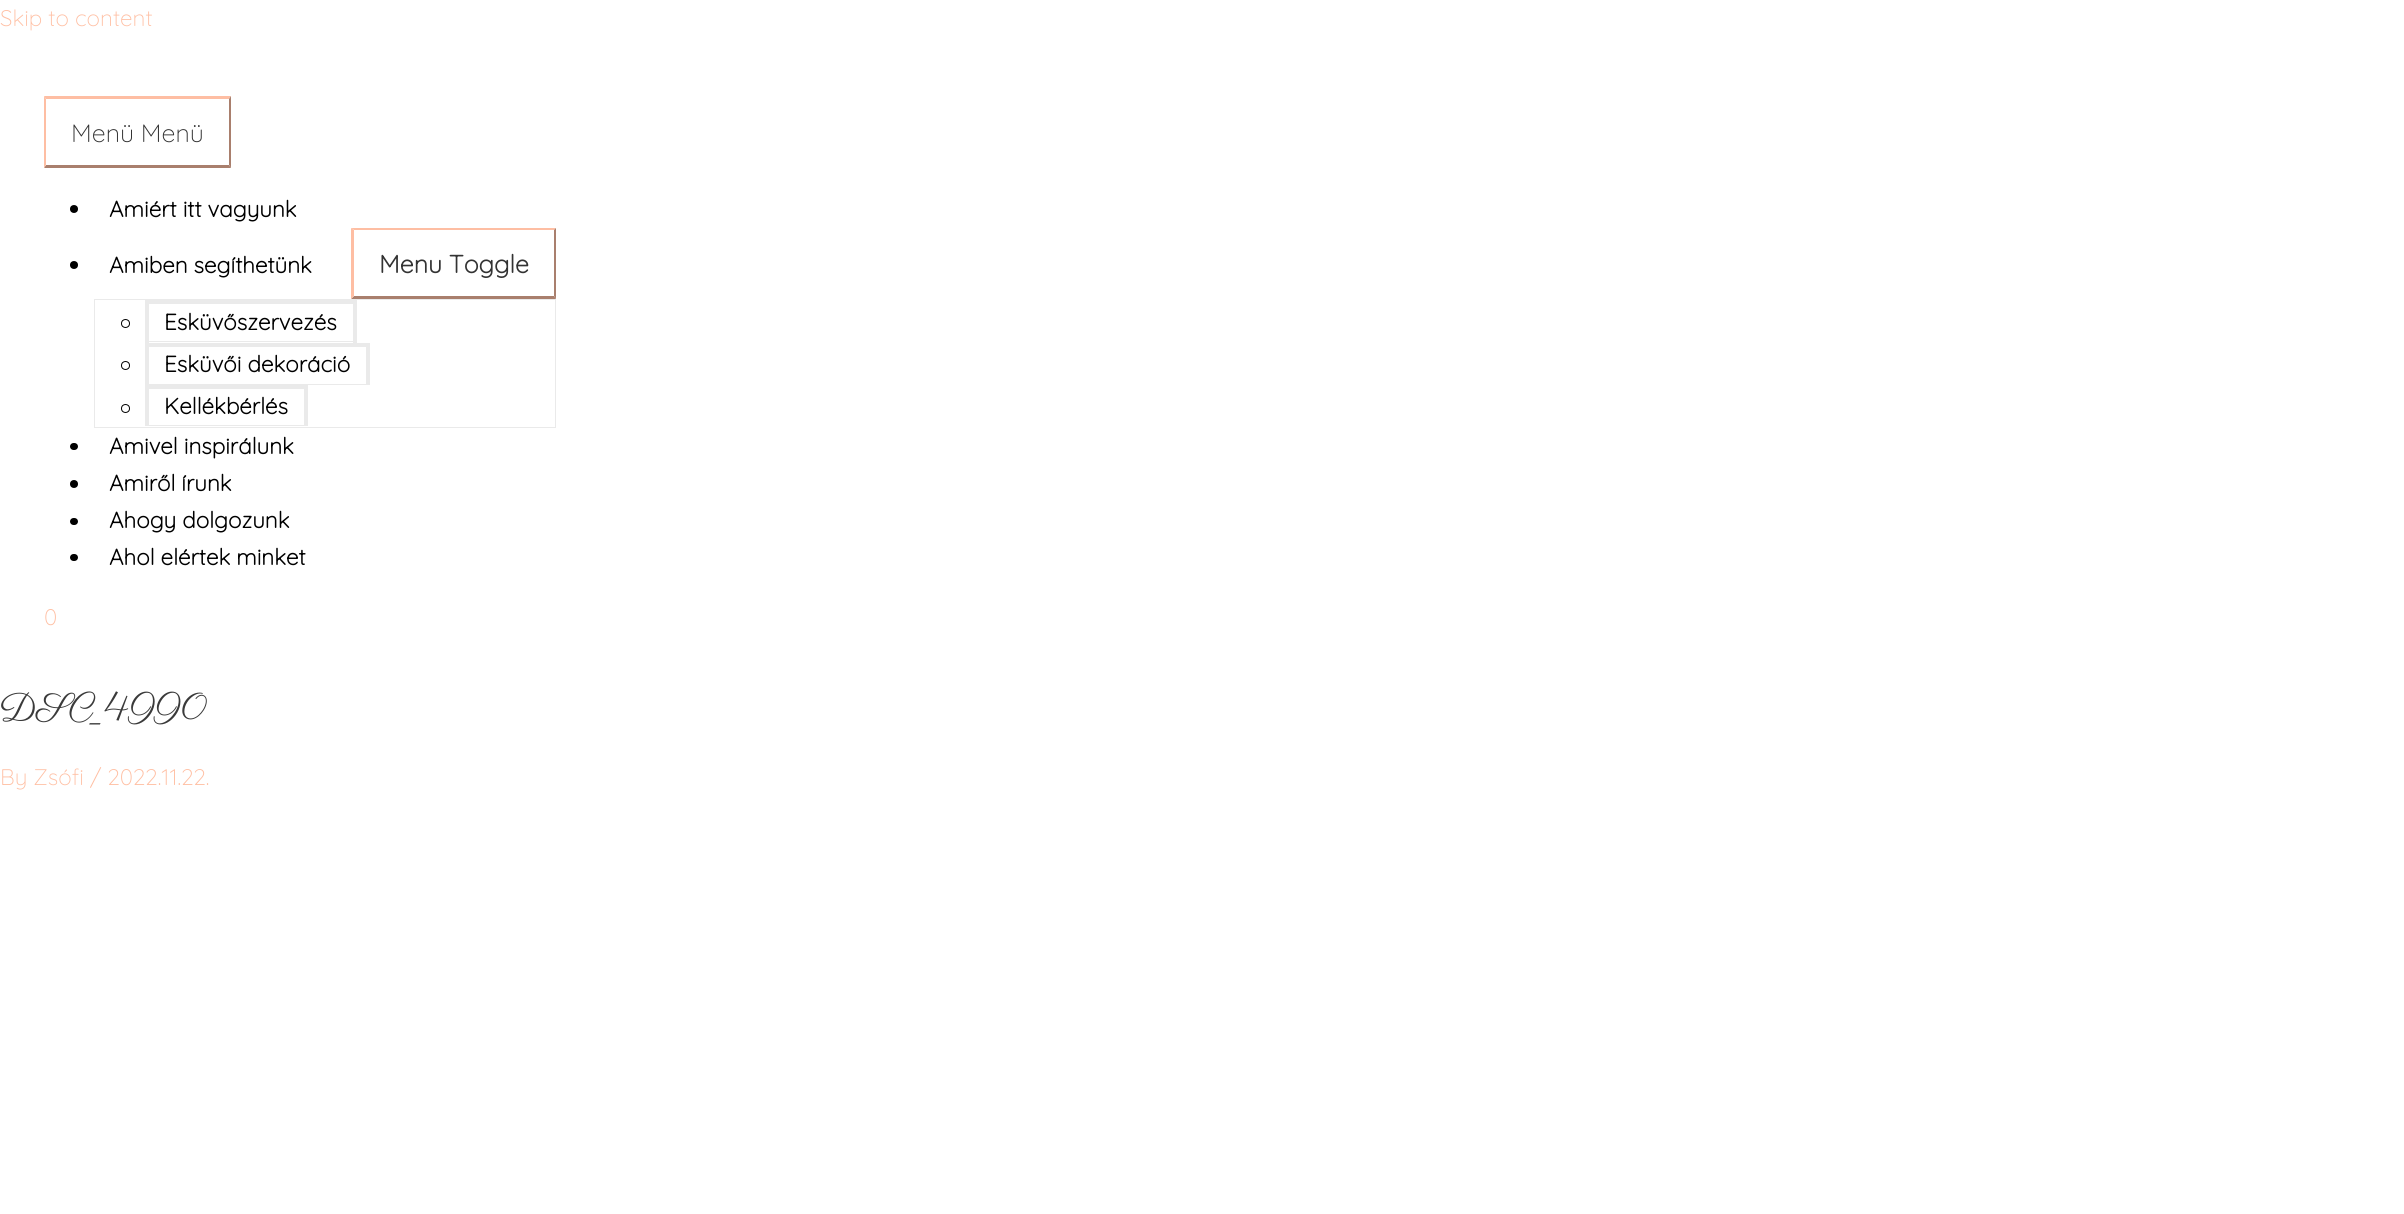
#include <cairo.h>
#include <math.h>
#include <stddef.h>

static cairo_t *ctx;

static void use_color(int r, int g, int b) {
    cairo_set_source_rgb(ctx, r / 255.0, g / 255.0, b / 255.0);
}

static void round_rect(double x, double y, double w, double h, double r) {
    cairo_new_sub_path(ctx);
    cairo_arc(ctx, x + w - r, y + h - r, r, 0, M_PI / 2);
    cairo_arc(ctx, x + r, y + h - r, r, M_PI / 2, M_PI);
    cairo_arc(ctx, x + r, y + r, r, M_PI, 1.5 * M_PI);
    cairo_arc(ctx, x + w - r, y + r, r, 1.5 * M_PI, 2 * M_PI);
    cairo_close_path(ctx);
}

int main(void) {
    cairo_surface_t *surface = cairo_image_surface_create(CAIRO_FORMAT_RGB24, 2404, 1214);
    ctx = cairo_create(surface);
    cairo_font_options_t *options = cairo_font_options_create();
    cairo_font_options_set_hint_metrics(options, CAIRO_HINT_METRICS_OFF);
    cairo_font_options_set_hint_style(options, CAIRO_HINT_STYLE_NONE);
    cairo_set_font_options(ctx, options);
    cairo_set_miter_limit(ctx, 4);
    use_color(255, 255, 255);
    cairo_paint(ctx);
    cairo_select_font_face(ctx, "Quicksand Light", CAIRO_FONT_SLANT_NORMAL, CAIRO_FONT_WEIGHT_NORMAL);
    cairo_set_font_size(ctx, 22.5);
    use_color(255, 191, 163);
    cairo_move_to(ctx, 0, 26);
    cairo_show_text(ctx, "Skip to content");
    use_color(254, 190, 163);
    cairo_new_path(ctx);
    cairo_move_to(ctx, 44, 96);
    cairo_line_to(ctx, 231, 96);
    cairo_line_to(ctx, 229, 99);
    cairo_line_to(ctx, 46, 99);
    cairo_close_path(ctx);
    cairo_fill(ctx);
    use_color(169, 127, 109);
    cairo_new_path(ctx);
    cairo_move_to(ctx, 231, 96);
    cairo_line_to(ctx, 231, 168);
    cairo_line_to(ctx, 229, 165);
    cairo_line_to(ctx, 229, 99);
    cairo_close_path(ctx);
    cairo_fill(ctx);
    cairo_new_path(ctx);
    cairo_move_to(ctx, 231, 168);
    cairo_line_to(ctx, 44, 168);
    cairo_line_to(ctx, 46, 165);
    cairo_line_to(ctx, 229, 165);
    cairo_close_path(ctx);
    cairo_fill(ctx);
    use_color(254, 190, 163);
    cairo_new_path(ctx);
    cairo_move_to(ctx, 44, 168);
    cairo_line_to(ctx, 44, 96);
    cairo_line_to(ctx, 46, 99);
    cairo_line_to(ctx, 46, 165);
    cairo_close_path(ctx);
    cairo_fill(ctx);
    cairo_set_font_size(ctx, 25);
    use_color(51, 51, 51);
    cairo_move_to(ctx, 71, 142);
    cairo_show_text(ctx, "Menü Menü");
    use_color(0, 0, 0);
    cairo_new_path(ctx);
    cairo_arc(ctx, 74, 209, 4, 0, 2 * M_PI);
    cairo_fill(ctx);
    cairo_select_font_face(ctx, "Quicksand", CAIRO_FONT_SLANT_NORMAL, CAIRO_FONT_WEIGHT_BOLD);
    cairo_set_font_size(ctx, 22.5);
    cairo_move_to(ctx, 109, 217);
    cairo_show_text(ctx, "Amiért itt vagyunk");
    cairo_new_path(ctx);
    cairo_arc(ctx, 74, 265, 4, 0, 2 * M_PI);
    cairo_fill(ctx);
    cairo_move_to(ctx, 109, 273);
    cairo_show_text(ctx, "Amiben segíthetünk");
    use_color(254, 190, 163);
    cairo_new_path(ctx);
    cairo_move_to(ctx, 351, 228);
    cairo_line_to(ctx, 556, 228);
    cairo_line_to(ctx, 554, 230);
    cairo_line_to(ctx, 354, 230);
    cairo_close_path(ctx);
    cairo_fill(ctx);
    use_color(169, 127, 109);
    cairo_new_path(ctx);
    cairo_move_to(ctx, 556, 228);
    cairo_line_to(ctx, 556, 299);
    cairo_line_to(ctx, 554, 296);
    cairo_line_to(ctx, 554, 230);
    cairo_close_path(ctx);
    cairo_fill(ctx);
    cairo_new_path(ctx);
    cairo_move_to(ctx, 556, 299);
    cairo_line_to(ctx, 351, 299);
    cairo_line_to(ctx, 354, 296);
    cairo_line_to(ctx, 554, 296);
    cairo_close_path(ctx);
    cairo_fill(ctx);
    use_color(254, 190, 163);
    cairo_new_path(ctx);
    cairo_move_to(ctx, 351, 299);
    cairo_line_to(ctx, 351, 228);
    cairo_line_to(ctx, 354, 230);
    cairo_line_to(ctx, 354, 296);
    cairo_close_path(ctx);
    cairo_fill(ctx);
    cairo_set_font_size(ctx, 25);
    use_color(51, 51, 51);
    cairo_move_to(ctx, 379, 273);
    cairo_show_text(ctx, "Menu Toggle");
    cairo_rectangle(ctx, 94.5, 299.5, 461, 128);
    use_color(234, 234, 234);
    cairo_set_line_width(ctx, 1);
    cairo_stroke(ctx);
    cairo_arc(ctx, 125.5, 323.5, 4, 0, 2 * M_PI);
    use_color(0, 0, 0);
    cairo_stroke(ctx);
    use_color(234, 234, 234);
    cairo_rectangle(ctx, 145, 300, 211, 4);
    cairo_fill(ctx);
    cairo_rectangle(ctx, 353, 300, 4, 43);
    cairo_fill(ctx);
    cairo_rectangle(ctx, 145, 341, 211, 1);
    cairo_fill(ctx);
    cairo_rectangle(ctx, 145, 300, 4, 43);
    cairo_fill(ctx);
    cairo_set_font_size(ctx, 22.5);
    use_color(0, 0, 0);
    cairo_move_to(ctx, 164, 330);
    cairo_show_text(ctx, "Esküvőszervezés");
    cairo_new_path(ctx);
    cairo_arc(ctx, 125.5, 365.5, 4, 0, 2 * M_PI);
    cairo_stroke(ctx);
    use_color(234, 234, 234);
    cairo_rectangle(ctx, 145, 343, 225, 4);
    cairo_fill(ctx);
    cairo_rectangle(ctx, 366, 343, 4, 42);
    cairo_fill(ctx);
    cairo_rectangle(ctx, 145, 384, 225, 1);
    cairo_fill(ctx);
    cairo_rectangle(ctx, 145, 343, 4, 42);
    cairo_fill(ctx);
    use_color(0, 0, 0);
    cairo_move_to(ctx, 164, 372);
    cairo_show_text(ctx, "Esküvői dekoráció");
    cairo_new_path(ctx);
    cairo_arc(ctx, 125.5, 408.5, 4, 0, 2 * M_PI);
    cairo_stroke(ctx);
    use_color(234, 234, 234);
    cairo_rectangle(ctx, 145, 385, 163, 4);
    cairo_fill(ctx);
    cairo_rectangle(ctx, 304, 385, 4, 41);
    cairo_fill(ctx);
    cairo_rectangle(ctx, 145, 425, 163, 1);
    cairo_fill(ctx);
    cairo_rectangle(ctx, 145, 385, 4, 41);
    cairo_fill(ctx);
    use_color(0, 0, 0);
    cairo_move_to(ctx, 164, 414);
    cairo_show_text(ctx, "Kellékbérlés");
    round_rect(70, 443, 8, 7, 3.5);
    cairo_fill(ctx);
    cairo_move_to(ctx, 109, 454);
    cairo_show_text(ctx, "Amivel inspirálunk");
    cairo_new_path(ctx);
    cairo_arc(ctx, 74, 484, 4, 0, 2 * M_PI);
    cairo_fill(ctx);
    cairo_move_to(ctx, 109, 491);
    cairo_show_text(ctx, "Amiről írunk");
    round_rect(70, 518, 8, 7, 3.5);
    cairo_fill(ctx);
    cairo_move_to(ctx, 109, 528);
    cairo_show_text(ctx, "Ahogy dolgozunk");
    round_rect(70, 554, 8, 7, 3.5);
    cairo_fill(ctx);
    cairo_move_to(ctx, 109, 565);
    cairo_show_text(ctx, "Ahol elértek minket");
    cairo_select_font_face(ctx, "Quicksand Light", CAIRO_FONT_SLANT_NORMAL, CAIRO_FONT_WEIGHT_NORMAL);
    use_color(255, 191, 163);
    cairo_move_to(ctx, 44, 625);
    cairo_show_text(ctx, "0");
    cairo_select_font_face(ctx, "Parisienne", CAIRO_FONT_SLANT_NORMAL, CAIRO_FONT_WEIGHT_NORMAL);
    cairo_set_font_size(ctx, 37.5);
    use_color(58, 58, 58);
    cairo_move_to(ctx, 0, 719);
    cairo_show_text(ctx, "DSC_4990");
    cairo_select_font_face(ctx, "Quicksand Light", CAIRO_FONT_SLANT_NORMAL, CAIRO_FONT_WEIGHT_NORMAL);
    cairo_set_font_size(ctx, 22.5);
    use_color(255, 191, 163);
    cairo_move_to(ctx, 0, 785);
    cairo_show_text(ctx, "By Zsófi / 2022.11.22.");
    cairo_surface_write_to_png(surface, "result.png");
    cairo_font_options_destroy(options);
    cairo_destroy(ctx);
    cairo_surface_destroy(surface);
    return 0;
}
